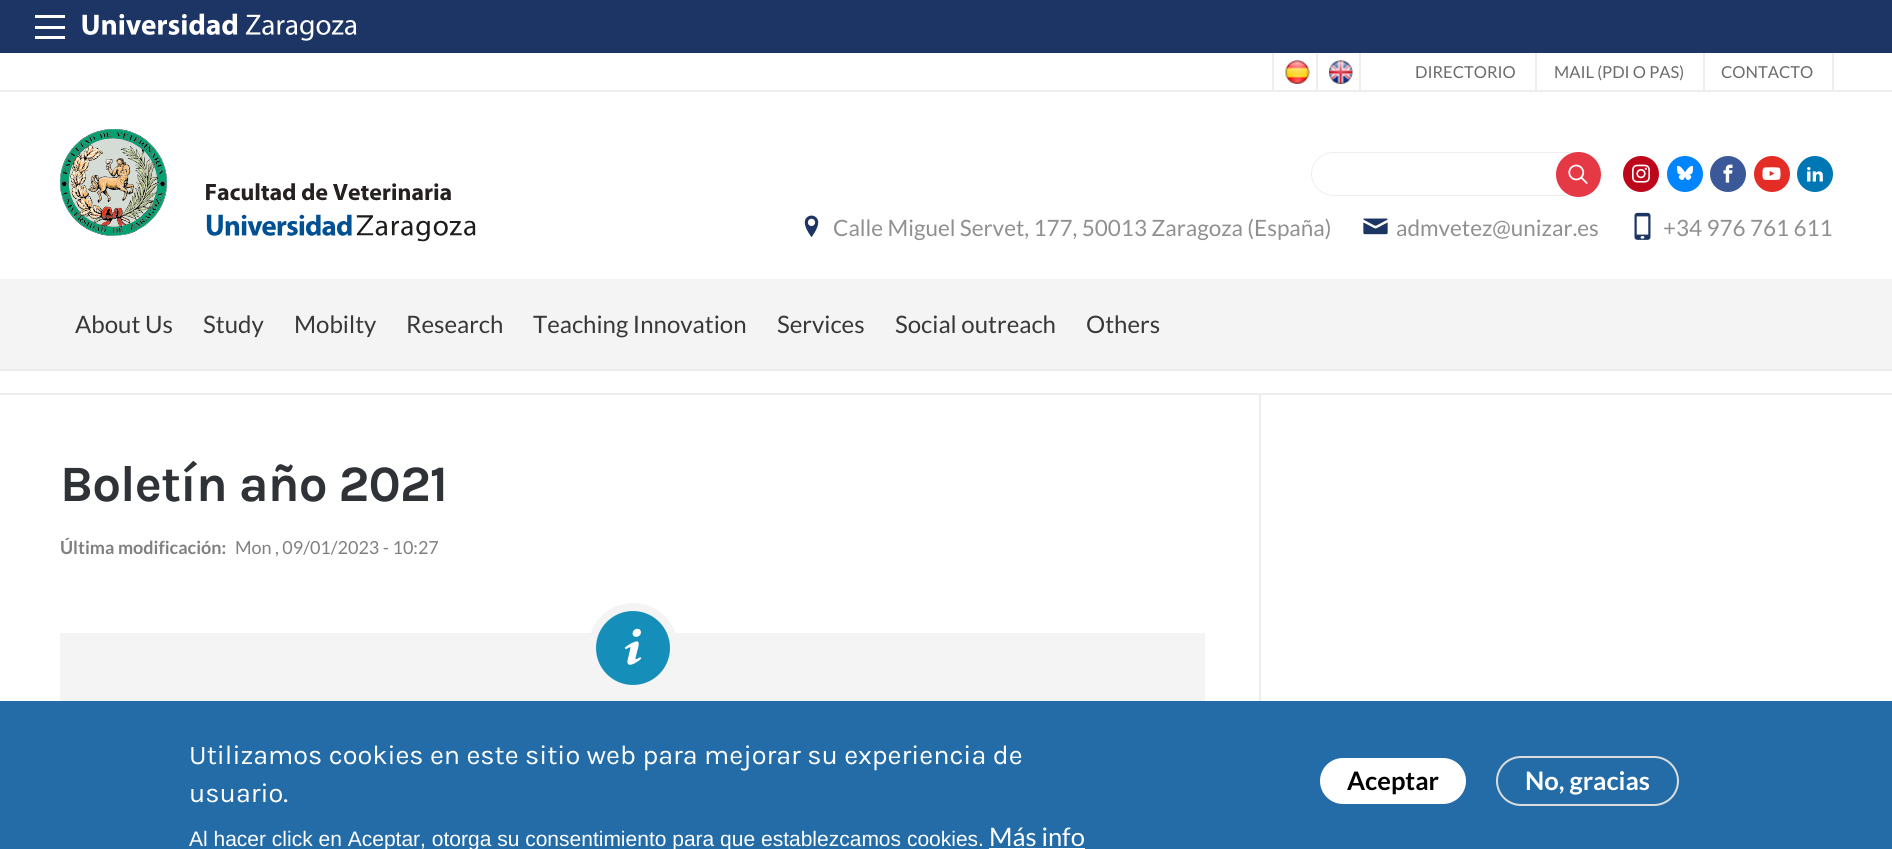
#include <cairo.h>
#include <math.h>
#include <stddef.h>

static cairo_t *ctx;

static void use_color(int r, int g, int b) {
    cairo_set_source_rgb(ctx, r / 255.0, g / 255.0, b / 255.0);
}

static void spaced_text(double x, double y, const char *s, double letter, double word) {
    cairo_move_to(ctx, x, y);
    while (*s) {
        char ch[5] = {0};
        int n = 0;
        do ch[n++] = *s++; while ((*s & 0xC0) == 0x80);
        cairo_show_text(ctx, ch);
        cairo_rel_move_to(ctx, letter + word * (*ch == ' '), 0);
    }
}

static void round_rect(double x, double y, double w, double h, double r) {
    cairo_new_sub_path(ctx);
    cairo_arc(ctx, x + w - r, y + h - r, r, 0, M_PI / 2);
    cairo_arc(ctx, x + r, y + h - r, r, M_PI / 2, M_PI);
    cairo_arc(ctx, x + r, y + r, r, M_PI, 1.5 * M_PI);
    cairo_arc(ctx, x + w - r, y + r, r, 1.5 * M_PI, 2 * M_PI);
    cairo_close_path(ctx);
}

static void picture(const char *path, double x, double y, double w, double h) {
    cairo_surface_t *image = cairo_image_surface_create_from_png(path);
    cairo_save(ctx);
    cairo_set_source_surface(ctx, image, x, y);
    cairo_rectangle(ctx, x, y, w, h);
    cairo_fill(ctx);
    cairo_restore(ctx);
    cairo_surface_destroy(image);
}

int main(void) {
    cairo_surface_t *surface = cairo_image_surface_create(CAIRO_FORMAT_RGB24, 1892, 849);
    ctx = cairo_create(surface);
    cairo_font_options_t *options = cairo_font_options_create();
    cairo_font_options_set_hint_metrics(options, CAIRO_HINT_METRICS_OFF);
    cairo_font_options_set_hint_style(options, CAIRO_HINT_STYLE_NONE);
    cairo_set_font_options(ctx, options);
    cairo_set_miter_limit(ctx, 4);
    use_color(255, 255, 255);
    cairo_paint(ctx);
    use_color(236, 236, 236);
    cairo_rectangle(ctx, 0, 369, 1892, 2);
    cairo_fill(ctx);
    use_color(29, 53, 100);
    cairo_rectangle(ctx, 0, 0, 1892, 53);
    cairo_fill(ctx);
    use_color(255, 255, 255);
    cairo_rectangle(ctx, 35, 26, 30, 3);
    cairo_fill(ctx);
    cairo_rectangle(ctx, 35, 15, 30, 3);
    cairo_fill(ctx);
    cairo_rectangle(ctx, 35, 36, 30, 3);
    cairo_fill(ctx);
    picture("img1.png", 82, 13, 275, 28);
    use_color(238, 238, 238);
    cairo_rectangle(ctx, 0, 90, 1892, 2);
    cairo_fill(ctx);
    cairo_rectangle(ctx, 1316, 53, 2, 37);
    cairo_fill(ctx);
    cairo_rectangle(ctx, 1272, 53, 2, 37);
    cairo_fill(ctx);
    picture("img2.png", 1285, 60, 25, 24);
    cairo_rectangle(ctx, 1359, 53, 2, 37);
    cairo_fill(ctx);
    picture("img3.png", 1329, 60, 24, 24);
    cairo_rectangle(ctx, 1535, 53, 2, 37);
    cairo_fill(ctx);
    cairo_select_font_face(ctx, "Lato", CAIRO_FONT_SLANT_NORMAL, CAIRO_FONT_WEIGHT_NORMAL);
    cairo_set_font_size(ctx, 16.5);
    use_color(107, 107, 107);
    cairo_move_to(ctx, 1415, 78);
    cairo_show_text(ctx, "DIRECTORIO");
    use_color(238, 238, 238);
    cairo_rectangle(ctx, 1703, 53, 2, 37);
    cairo_fill(ctx);
    use_color(107, 107, 107);
    cairo_move_to(ctx, 1554, 78);
    cairo_show_text(ctx, "MAIL (PDI O PAS)");
    use_color(238, 238, 238);
    cairo_rectangle(ctx, 1832, 53, 2, 37);
    cairo_fill(ctx);
    use_color(107, 107, 107);
    cairo_move_to(ctx, 1721, 78);
    cairo_show_text(ctx, "CONTACTO");
    picture("img4.png", 60, 129, 416, 113);
    use_color(238, 238, 238);
    cairo_set_fill_rule(ctx, CAIRO_FILL_RULE_EVEN_ODD);
    cairo_new_path(ctx);
    cairo_move_to(ctx, 1334, 152);
    cairo_line_to(ctx, 1581, 152);
    cairo_line_to(ctx, 1581, 196);
    cairo_line_to(ctx, 1334, 196);
    cairo_curve_to(ctx, 1321, 196, 1311, 186, 1311, 174);
    cairo_curve_to(ctx, 1311, 162, 1321, 152, 1334, 152);
    cairo_close_path(ctx);
    cairo_move_to(ctx, 1334, 153);
    cairo_line_to(ctx, 1581, 153);
    cairo_line_to(ctx, 1581, 195);
    cairo_line_to(ctx, 1334, 195);
    cairo_curve_to(ctx, 1322, 195, 1312, 186, 1312, 174);
    cairo_curve_to(ctx, 1312, 162, 1322, 153, 1334, 153);
    cairo_close_path(ctx);
    cairo_fill(ctx);
    use_color(230, 57, 70);
    cairo_arc(ctx, 1578.5, 174.5, 22.5, 0, 2 * M_PI);
    cairo_fill(ctx);
    picture("img5.png", 1568, 164, 20, 20);
    use_color(189, 8, 28);
    cairo_arc(ctx, 1641, 174, 18, 0, 2 * M_PI);
    cairo_fill(ctx);
    picture("img6.png", 1632, 164, 18, 19);
    use_color(0, 133, 255);
    cairo_arc(ctx, 1685, 174, 18, 0, 2 * M_PI);
    cairo_fill(ctx);
    picture("img7.png", 1677, 165, 17, 15);
    use_color(59, 89, 152);
    cairo_arc(ctx, 1728, 174, 18, 0, 2 * M_PI);
    cairo_fill(ctx);
    picture("img8.png", 1723, 164, 10, 19);
    use_color(229, 45, 39);
    cairo_arc(ctx, 1772, 174, 18, 0, 2 * M_PI);
    cairo_fill(ctx);
    picture("img9.png", 1762, 167, 19, 13);
    use_color(0, 119, 181);
    cairo_arc(ctx, 1815, 174, 18, 0, 2 * M_PI);
    cairo_fill(ctx);
    picture("img10.png", 1807, 166, 16, 16);
    picture("img11.png", 804, 215, 15, 22);
    cairo_set_font_size(ctx, 22.5);
    use_color(144, 144, 144);
    cairo_move_to(ctx, 833, 236);
    cairo_show_text(ctx, "Calle Miguel Servet, 177, 50013 Zaragoza (España)");
    picture("img12.png", 1363, 218, 25, 17);
    cairo_move_to(ctx, 1396, 236);
    cairo_show_text(ctx, "admvetez@unizar.es");
    picture("img13.png", 1634, 212, 17, 28);
    cairo_move_to(ctx, 1663, 236);
    cairo_show_text(ctx, "+34 976 761 611");
    use_color(244, 244, 244);
    cairo_rectangle(ctx, 0, 279, 1892, 90);
    cairo_fill(ctx);
    cairo_set_font_size(ctx, 24);
    use_color(56, 56, 56);
    cairo_move_to(ctx, 75, 333);
    cairo_show_text(ctx, "About Us");
    cairo_move_to(ctx, 203, 333);
    cairo_show_text(ctx, "Study");
    cairo_move_to(ctx, 294, 333);
    cairo_show_text(ctx, "Mobilty");
    cairo_move_to(ctx, 406, 333);
    cairo_show_text(ctx, "Research");
    cairo_move_to(ctx, 533, 333);
    cairo_show_text(ctx, "Teaching Innovation");
    cairo_move_to(ctx, 777, 333);
    cairo_show_text(ctx, "Services");
    cairo_move_to(ctx, 895, 333);
    cairo_show_text(ctx, "Social outreach");
    cairo_move_to(ctx, 1086, 333);
    cairo_show_text(ctx, "Others");
    use_color(238, 238, 238);
    cairo_rectangle(ctx, 0, 393, 1892, 2);
    cairo_fill(ctx);
    cairo_select_font_face(ctx, "Karla", CAIRO_FONT_SLANT_NORMAL, CAIRO_FONT_WEIGHT_BOLD);
    cairo_set_font_size(ctx, 51);
    use_color(47, 51, 55);
    spaced_text(60, 501, "Boletín año 2021", -0.9, 0);
    cairo_select_font_face(ctx, "Lato", CAIRO_FONT_SLANT_NORMAL, CAIRO_FONT_WEIGHT_BOLD);
    cairo_set_font_size(ctx, 18);
    use_color(128, 128, 128);
    cairo_move_to(ctx, 60, 554);
    cairo_show_text(ctx, "Última modificación:");
    cairo_select_font_face(ctx, "Lato", CAIRO_FONT_SLANT_NORMAL, CAIRO_FONT_WEIGHT_NORMAL);
    cairo_move_to(ctx, 235, 554);
    cairo_show_text(ctx, "Mon , 09/01/2023 - 10:27");
    use_color(244, 244, 244);
    cairo_rectangle(ctx, 60, 633, 1145, 68);
    cairo_fill(ctx);
    use_color(22, 142, 186);
    cairo_arc(ctx, 633, 648, 41, 0, 2 * M_PI);
    cairo_fill_preserve(ctx);
    use_color(244, 244, 244);
    cairo_set_line_width(ctx, 8);
    cairo_stroke(ctx);
    picture("img14.png", 624, 628, 18, 37);
    use_color(238, 238, 238);
    cairo_rectangle(ctx, 1259, 395, 2, 306);
    cairo_fill(ctx);
    use_color(35, 108, 167);
    cairo_rectangle(ctx, 0, 701, 1892, 148);
    cairo_fill(ctx);
    cairo_select_font_face(ctx, "Karla", CAIRO_FONT_SLANT_NORMAL, CAIRO_FONT_WEIGHT_NORMAL);
    cairo_set_font_size(ctx, 27);
    use_color(255, 255, 255);
    cairo_move_to(ctx, 189, 764);
    cairo_show_text(ctx, "Utilizamos cookies en este sitio web para mejorar su experiencia de");
    cairo_move_to(ctx, 189, 802);
    cairo_show_text(ctx, "usuario.");
    cairo_select_font_face(ctx, "Liberation Sans", CAIRO_FONT_SLANT_NORMAL, CAIRO_FONT_WEIGHT_NORMAL);
    cairo_set_font_size(ctx, 21);
    cairo_move_to(ctx, 189, 846);
    cairo_show_text(ctx, "Al hacer click en Aceptar, otorga su consentimiento para que establezcamos cookies.");
    cairo_select_font_face(ctx, "Lato", CAIRO_FONT_SLANT_NORMAL, CAIRO_FONT_WEIGHT_NORMAL);
    cairo_set_font_size(ctx, 25.5);
    cairo_move_to(ctx, 989, 846);
    cairo_show_text(ctx, "Más info");
    cairo_rectangle(ctx, 989, 848, 96, 1);
    cairo_fill(ctx);
    round_rect(1320, 758, 146, 46, 23);
    cairo_fill(ctx);
    cairo_select_font_face(ctx, "Lato", CAIRO_FONT_SLANT_NORMAL, CAIRO_FONT_WEIGHT_BOLD);
    use_color(0, 0, 0);
    cairo_move_to(ctx, 1347, 790);
    cairo_show_text(ctx, "Aceptar");
    round_rect(1497, 757, 181, 48, 24);
    use_color(220, 220, 220);
    cairo_set_line_width(ctx, 2);
    cairo_stroke(ctx);
    use_color(255, 255, 255);
    cairo_move_to(ctx, 1525, 790);
    cairo_show_text(ctx, "No, gracias");
    cairo_surface_write_to_png(surface, "result.png");
    cairo_font_options_destroy(options);
    cairo_destroy(ctx);
    cairo_surface_destroy(surface);
    return 0;
}
